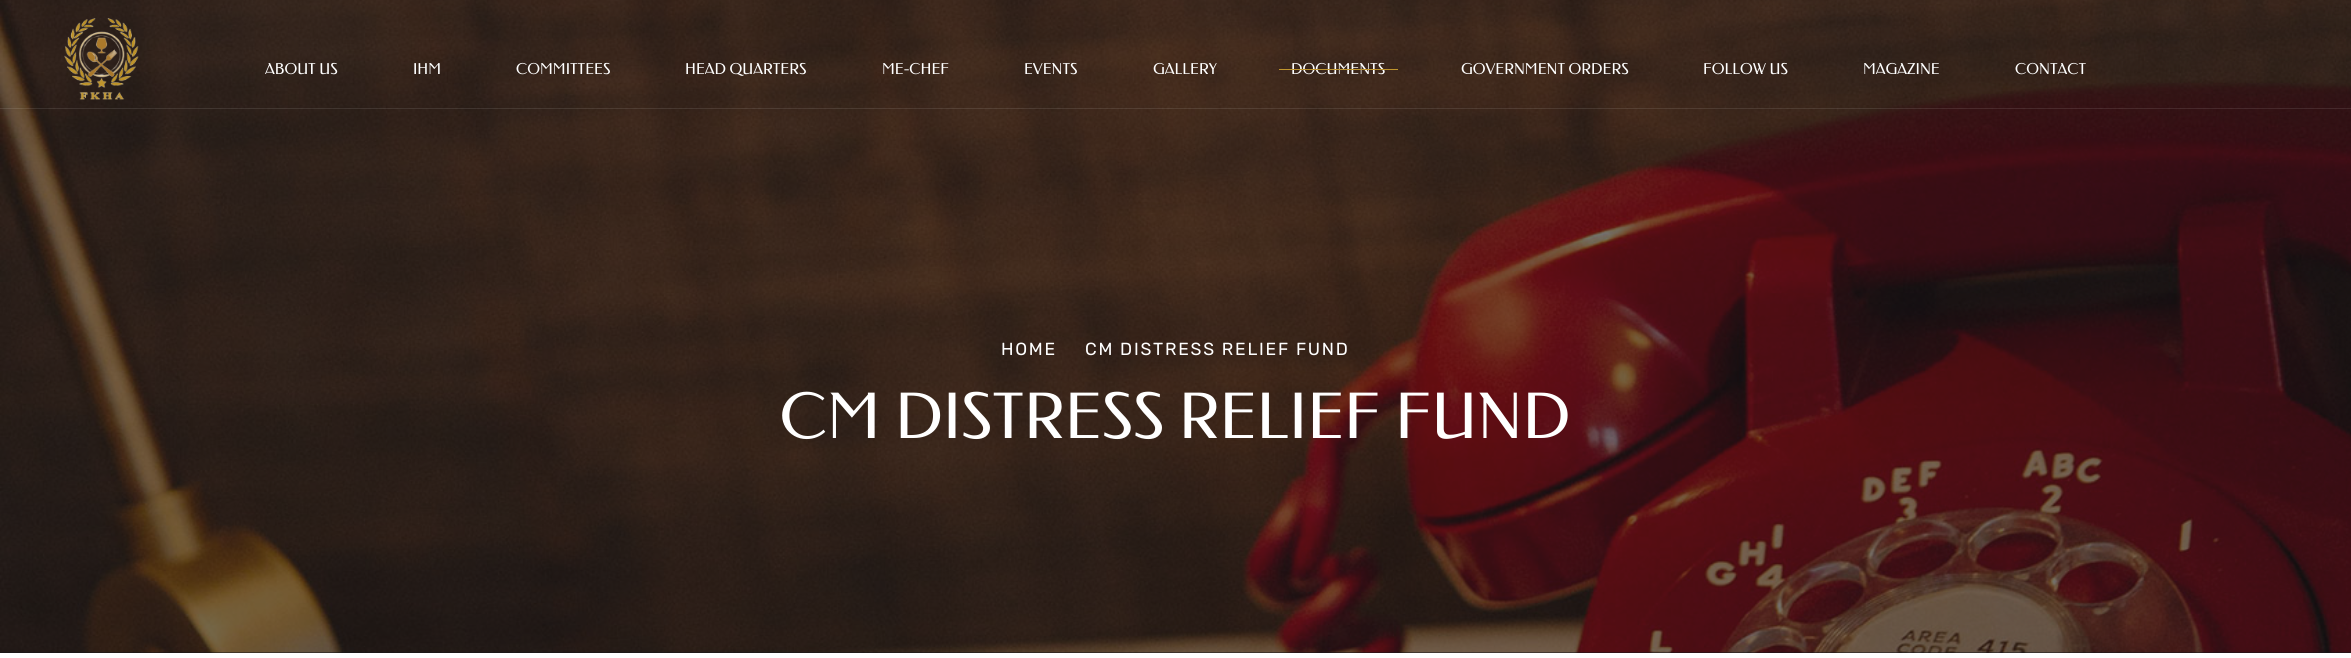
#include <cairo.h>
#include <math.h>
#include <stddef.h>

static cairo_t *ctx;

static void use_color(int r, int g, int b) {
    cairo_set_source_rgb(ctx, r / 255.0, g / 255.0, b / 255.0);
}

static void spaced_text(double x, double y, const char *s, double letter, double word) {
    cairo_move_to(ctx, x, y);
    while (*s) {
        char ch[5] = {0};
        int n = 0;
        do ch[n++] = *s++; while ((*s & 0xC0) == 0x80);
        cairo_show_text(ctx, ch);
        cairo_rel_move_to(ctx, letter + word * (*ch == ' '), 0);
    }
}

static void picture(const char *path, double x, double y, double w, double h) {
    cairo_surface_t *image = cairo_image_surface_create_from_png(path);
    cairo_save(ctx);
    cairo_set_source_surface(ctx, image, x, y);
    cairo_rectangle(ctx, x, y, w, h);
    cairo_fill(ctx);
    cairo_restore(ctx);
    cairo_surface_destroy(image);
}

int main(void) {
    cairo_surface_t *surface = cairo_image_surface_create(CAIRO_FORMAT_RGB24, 2351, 658);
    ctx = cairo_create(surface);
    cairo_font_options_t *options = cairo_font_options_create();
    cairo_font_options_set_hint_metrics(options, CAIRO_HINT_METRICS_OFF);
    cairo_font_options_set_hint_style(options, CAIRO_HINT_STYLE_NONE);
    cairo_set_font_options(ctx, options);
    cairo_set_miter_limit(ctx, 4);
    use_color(255, 255, 255);
    cairo_paint(ctx);
    use_color(23, 22, 26);
    cairo_rectangle(ctx, 0, 0, 2351, 653);
    cairo_fill(ctx);
    picture("img2.png", 0, 0, 2351, 653);
    picture("img1.png", 64, 18, 75, 82);
    cairo_select_font_face(ctx, "Federo", CAIRO_FONT_SLANT_NORMAL, CAIRO_FONT_WEIGHT_NORMAL);
    cairo_set_font_size(ctx, 15);
    use_color(255, 255, 255);
    cairo_move_to(ctx, 265, 74);
    cairo_show_text(ctx, "ABOUT US");
    cairo_move_to(ctx, 413, 74);
    cairo_show_text(ctx, "IHM");
    cairo_move_to(ctx, 516, 74);
    cairo_show_text(ctx, "COMMITTEES");
    cairo_move_to(ctx, 685, 74);
    cairo_show_text(ctx, "HEAD QUARTERS");
    cairo_move_to(ctx, 882, 74);
    cairo_show_text(ctx, "ME-CHEF");
    cairo_move_to(ctx, 1024, 74);
    cairo_show_text(ctx, "EVENTS");
    cairo_move_to(ctx, 1153, 74);
    cairo_show_text(ctx, "GALLERY");
    cairo_move_to(ctx, 1291, 74);
    cairo_show_text(ctx, "DOCUMENTS");
    use_color(191, 149, 45);
    cairo_rectangle(ctx, 1279, 69, 119, 1);
    cairo_fill(ctx);
    use_color(255, 255, 255);
    cairo_move_to(ctx, 1461, 74);
    cairo_show_text(ctx, "GOVERNMENT ORDERS");
    cairo_move_to(ctx, 1703, 74);
    cairo_show_text(ctx, "FOLLOW US");
    cairo_move_to(ctx, 1863, 74);
    cairo_show_text(ctx, "MAGAZINE");
    cairo_move_to(ctx, 2015, 74);
    cairo_show_text(ctx, "CONTACT");
    cairo_set_source_rgba(ctx, 1, 1, 1, 0.1);
    cairo_rectangle(ctx, 0, 108, 2351, 1);
    cairo_fill(ctx);
    cairo_select_font_face(ctx, "Rubik", CAIRO_FONT_SLANT_NORMAL, CAIRO_FONT_WEIGHT_NORMAL);
    cairo_set_font_size(ctx, 17.5);
    use_color(255, 255, 255);
    spaced_text(1001, 355, "HOME", 1.75, 0);
    spaced_text(1085, 355, "CM DISTRESS RELIEF FUND", 1.75, 0);
    cairo_select_font_face(ctx, "Federo", CAIRO_FONT_SLANT_NORMAL, CAIRO_FONT_WEIGHT_NORMAL);
    cairo_set_font_size(ctx, 62.5);
    cairo_move_to(ctx, 780, 438);
    cairo_show_text(ctx, "CM DISTRESS RELIEF FUND");
    cairo_surface_write_to_png(surface, "result.png");
    cairo_font_options_destroy(options);
    cairo_destroy(ctx);
    cairo_surface_destroy(surface);
    return 0;
}
